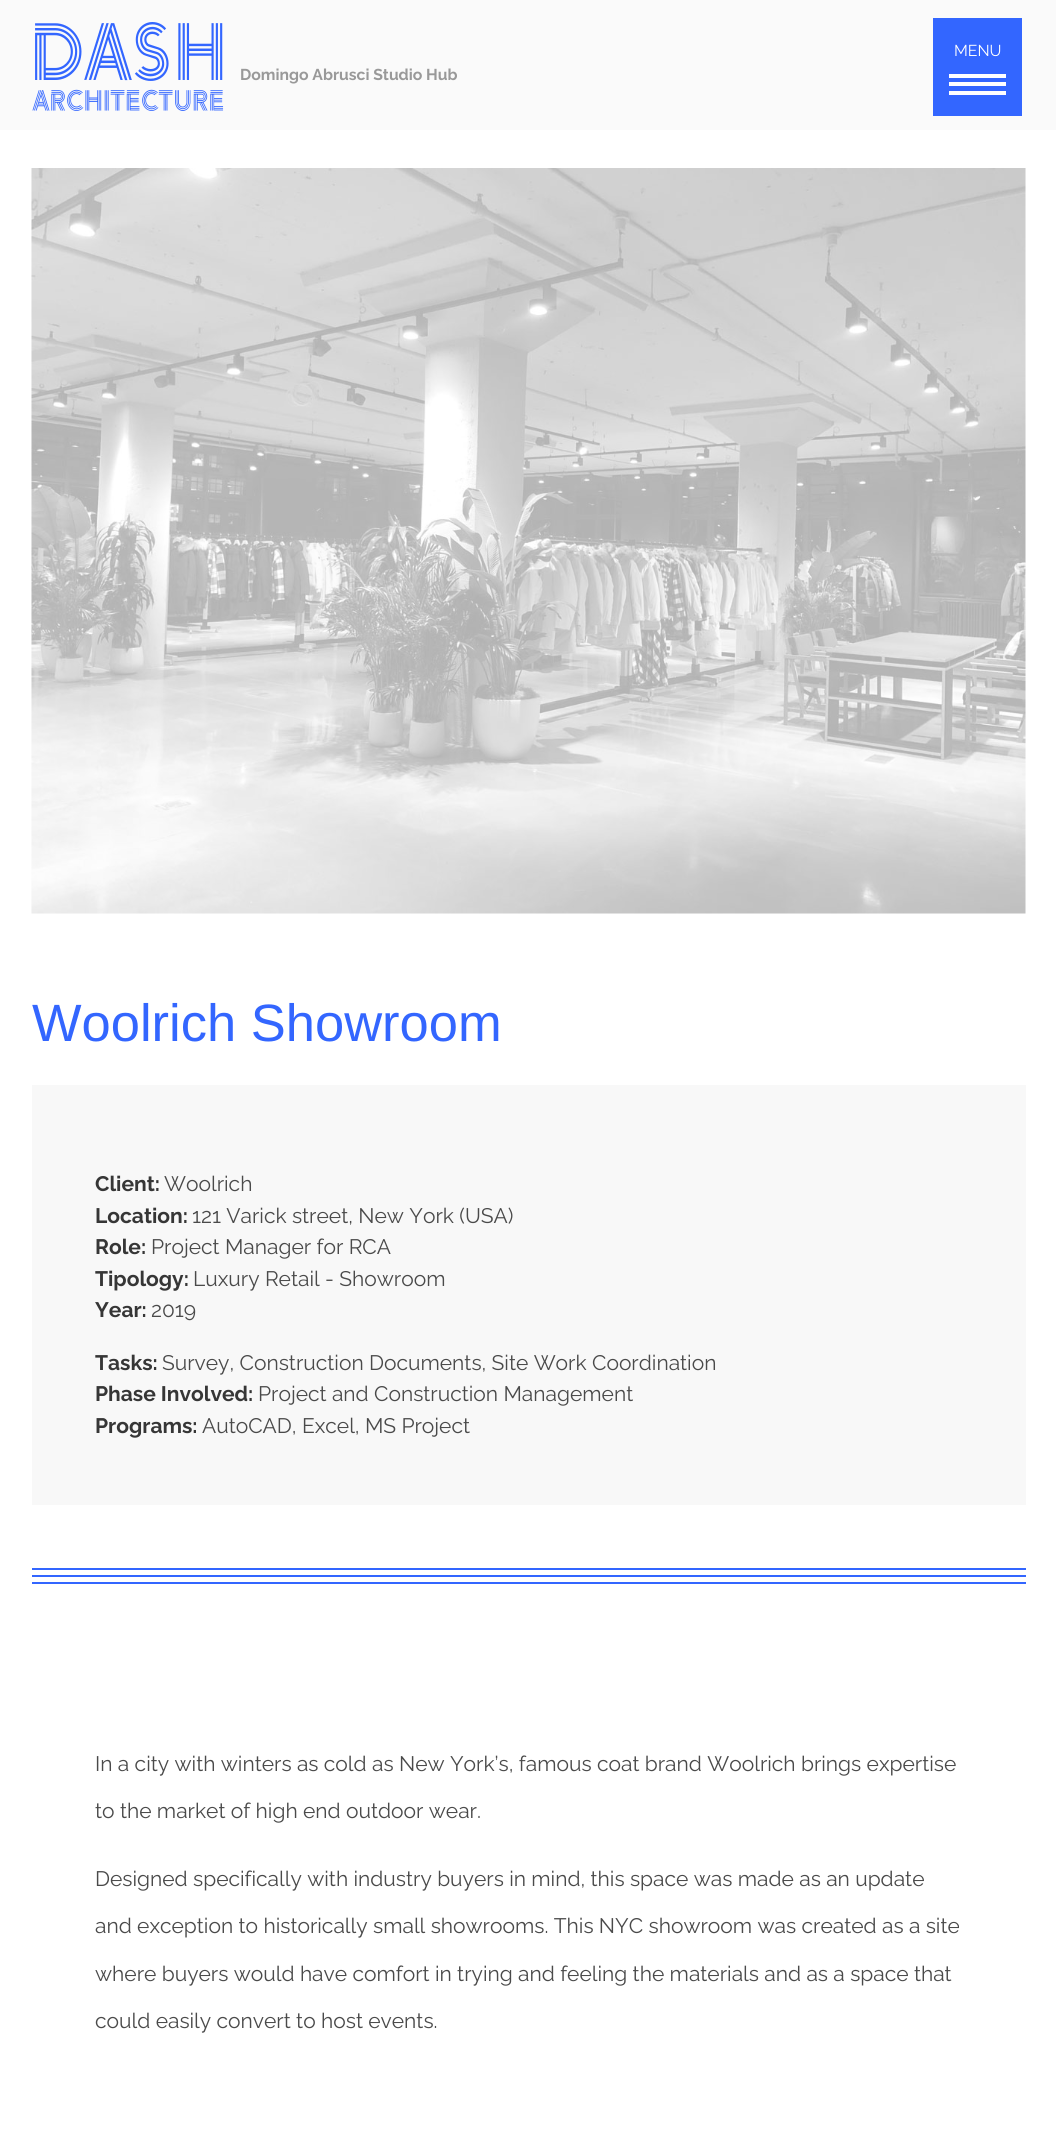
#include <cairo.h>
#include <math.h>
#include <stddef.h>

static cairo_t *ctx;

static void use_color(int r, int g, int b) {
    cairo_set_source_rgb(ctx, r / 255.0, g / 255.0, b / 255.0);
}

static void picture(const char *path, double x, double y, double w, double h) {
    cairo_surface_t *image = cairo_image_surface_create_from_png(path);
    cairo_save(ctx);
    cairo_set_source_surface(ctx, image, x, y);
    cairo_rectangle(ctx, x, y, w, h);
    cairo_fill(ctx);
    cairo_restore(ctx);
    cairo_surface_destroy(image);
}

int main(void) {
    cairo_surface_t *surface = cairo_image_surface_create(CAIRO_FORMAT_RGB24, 1056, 2135);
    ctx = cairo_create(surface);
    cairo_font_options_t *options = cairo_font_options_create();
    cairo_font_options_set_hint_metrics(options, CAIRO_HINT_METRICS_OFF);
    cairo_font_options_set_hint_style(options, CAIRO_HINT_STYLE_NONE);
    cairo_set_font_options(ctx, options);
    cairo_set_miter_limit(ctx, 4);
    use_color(255, 255, 255);
    cairo_paint(ctx);
    use_color(250, 250, 250);
    cairo_rectangle(ctx, 0, 0, 1056, 130);
    cairo_fill(ctx);
    picture("img1.png", 32, 22, 192, 89);
    use_color(51, 102, 255);
    cairo_rectangle(ctx, 933, 18, 89, 98);
    cairo_fill(ctx);
    cairo_select_font_face(ctx, "Raleway", CAIRO_FONT_SLANT_NORMAL, CAIRO_FONT_WEIGHT_NORMAL);
    cairo_set_font_size(ctx, 15.75);
    use_color(255, 255, 255);
    cairo_move_to(ctx, 954, 56);
    cairo_show_text(ctx, "MENU");
    cairo_rectangle(ctx, 949, 74, 57, 4);
    cairo_fill(ctx);
    cairo_rectangle(ctx, 949, 82, 57, 4);
    cairo_fill(ctx);
    cairo_rectangle(ctx, 949, 91, 57, 4);
    cairo_fill(ctx);
    cairo_select_font_face(ctx, "Raleway", CAIRO_FONT_SLANT_NORMAL, CAIRO_FONT_WEIGHT_BOLD);
    use_color(153, 153, 153);
    cairo_move_to(ctx, 240, 80);
    cairo_show_text(ctx, "Domingo Abrusci Studio Hub");
    picture("img2.png", 31, 168, 995, 746);
    cairo_select_font_face(ctx, "Liberation Sans", CAIRO_FONT_SLANT_NORMAL, CAIRO_FONT_WEIGHT_NORMAL);
    cairo_set_font_size(ctx, 52.5);
    use_color(51, 102, 255);
    cairo_move_to(ctx, 32, 1041);
    cairo_show_text(ctx, "Woolrich Showroom");
    use_color(248, 248, 248);
    cairo_rectangle(ctx, 32, 1085, 994, 420);
    cairo_fill(ctx);
    cairo_select_font_face(ctx, "Raleway", CAIRO_FONT_SLANT_NORMAL, CAIRO_FONT_WEIGHT_BOLD);
    cairo_set_font_size(ctx, 21);
    use_color(54, 54, 54);
    cairo_move_to(ctx, 95, 1191);
    cairo_show_text(ctx, "Client:");
    cairo_select_font_face(ctx, "Raleway", CAIRO_FONT_SLANT_NORMAL, CAIRO_FONT_WEIGHT_NORMAL);
    use_color(74, 74, 74);
    cairo_move_to(ctx, 164, 1191);
    cairo_show_text(ctx, "Woolrich");
    cairo_select_font_face(ctx, "Raleway", CAIRO_FONT_SLANT_NORMAL, CAIRO_FONT_WEIGHT_BOLD);
    use_color(54, 54, 54);
    cairo_move_to(ctx, 95, 1223);
    cairo_show_text(ctx, "Location:");
    cairo_select_font_face(ctx, "Raleway", CAIRO_FONT_SLANT_NORMAL, CAIRO_FONT_WEIGHT_NORMAL);
    use_color(74, 74, 74);
    cairo_move_to(ctx, 192, 1223);
    cairo_show_text(ctx, "121 Varick street, New York (USA)");
    cairo_select_font_face(ctx, "Raleway", CAIRO_FONT_SLANT_NORMAL, CAIRO_FONT_WEIGHT_BOLD);
    use_color(54, 54, 54);
    cairo_move_to(ctx, 95, 1254);
    cairo_show_text(ctx, "Role:");
    cairo_select_font_face(ctx, "Raleway", CAIRO_FONT_SLANT_NORMAL, CAIRO_FONT_WEIGHT_NORMAL);
    use_color(74, 74, 74);
    cairo_move_to(ctx, 151, 1254);
    cairo_show_text(ctx, "Project Manager for RCA");
    cairo_select_font_face(ctx, "Raleway", CAIRO_FONT_SLANT_NORMAL, CAIRO_FONT_WEIGHT_BOLD);
    use_color(54, 54, 54);
    cairo_move_to(ctx, 95, 1286);
    cairo_show_text(ctx, "Tipology:");
    cairo_select_font_face(ctx, "Raleway", CAIRO_FONT_SLANT_NORMAL, CAIRO_FONT_WEIGHT_NORMAL);
    use_color(74, 74, 74);
    cairo_move_to(ctx, 193, 1286);
    cairo_show_text(ctx, "Luxury Retail - Showroom");
    cairo_select_font_face(ctx, "Raleway", CAIRO_FONT_SLANT_NORMAL, CAIRO_FONT_WEIGHT_BOLD);
    use_color(54, 54, 54);
    cairo_move_to(ctx, 95, 1317);
    cairo_show_text(ctx, "Year:");
    cairo_select_font_face(ctx, "Raleway", CAIRO_FONT_SLANT_NORMAL, CAIRO_FONT_WEIGHT_NORMAL);
    use_color(74, 74, 74);
    cairo_move_to(ctx, 151, 1317);
    cairo_show_text(ctx, "2019");
    cairo_select_font_face(ctx, "Raleway", CAIRO_FONT_SLANT_NORMAL, CAIRO_FONT_WEIGHT_BOLD);
    use_color(54, 54, 54);
    cairo_move_to(ctx, 95, 1370);
    cairo_show_text(ctx, "Tasks:");
    cairo_select_font_face(ctx, "Raleway", CAIRO_FONT_SLANT_NORMAL, CAIRO_FONT_WEIGHT_NORMAL);
    use_color(74, 74, 74);
    cairo_move_to(ctx, 162, 1370);
    cairo_show_text(ctx, "Survey, Construction Documents, Site Work Coordination");
    cairo_select_font_face(ctx, "Raleway", CAIRO_FONT_SLANT_NORMAL, CAIRO_FONT_WEIGHT_BOLD);
    use_color(54, 54, 54);
    cairo_move_to(ctx, 95, 1401);
    cairo_show_text(ctx, "Phase Involved:");
    cairo_select_font_face(ctx, "Raleway", CAIRO_FONT_SLANT_NORMAL, CAIRO_FONT_WEIGHT_NORMAL);
    use_color(74, 74, 74);
    cairo_move_to(ctx, 258, 1401);
    cairo_show_text(ctx, "Project and Construction Management");
    cairo_select_font_face(ctx, "Raleway", CAIRO_FONT_SLANT_NORMAL, CAIRO_FONT_WEIGHT_BOLD);
    use_color(54, 54, 54);
    cairo_move_to(ctx, 95, 1433);
    cairo_show_text(ctx, "Programs:");
    cairo_select_font_face(ctx, "Raleway", CAIRO_FONT_SLANT_NORMAL, CAIRO_FONT_WEIGHT_NORMAL);
    use_color(74, 74, 74);
    cairo_move_to(ctx, 202, 1433);
    cairo_show_text(ctx, "AutoCAD, Excel, MS Project");
    use_color(51, 102, 255);
    cairo_rectangle(ctx, 32, 1568, 994, 2);
    cairo_fill(ctx);
    cairo_rectangle(ctx, 32, 1575, 994, 2);
    cairo_fill(ctx);
    cairo_rectangle(ctx, 32, 1582, 994, 2);
    cairo_fill(ctx);
    use_color(74, 74, 74);
    cairo_move_to(ctx, 95, 1771);
    cairo_show_text(ctx, "In a city with winters as cold as New York’s, famous coat brand Woolrich brings expertise");
    cairo_move_to(ctx, 95, 1818);
    cairo_show_text(ctx, "to the market of high end outdoor wear.");
    cairo_move_to(ctx, 95, 1886);
    cairo_show_text(ctx, "Designed specifically with industry buyers in mind, this space was made as an update");
    cairo_move_to(ctx, 95, 1933);
    cairo_show_text(ctx, "and exception to historically small showrooms. This NYC showroom was created as a site");
    cairo_move_to(ctx, 95, 1981);
    cairo_show_text(ctx, "where buyers would have comfort in trying and feeling the materials and as a space that");
    cairo_move_to(ctx, 95, 2028);
    cairo_show_text(ctx, "could easily convert to host events.");
    cairo_surface_write_to_png(surface, "result.png");
    cairo_font_options_destroy(options);
    cairo_destroy(ctx);
    cairo_surface_destroy(surface);
    return 0;
}
